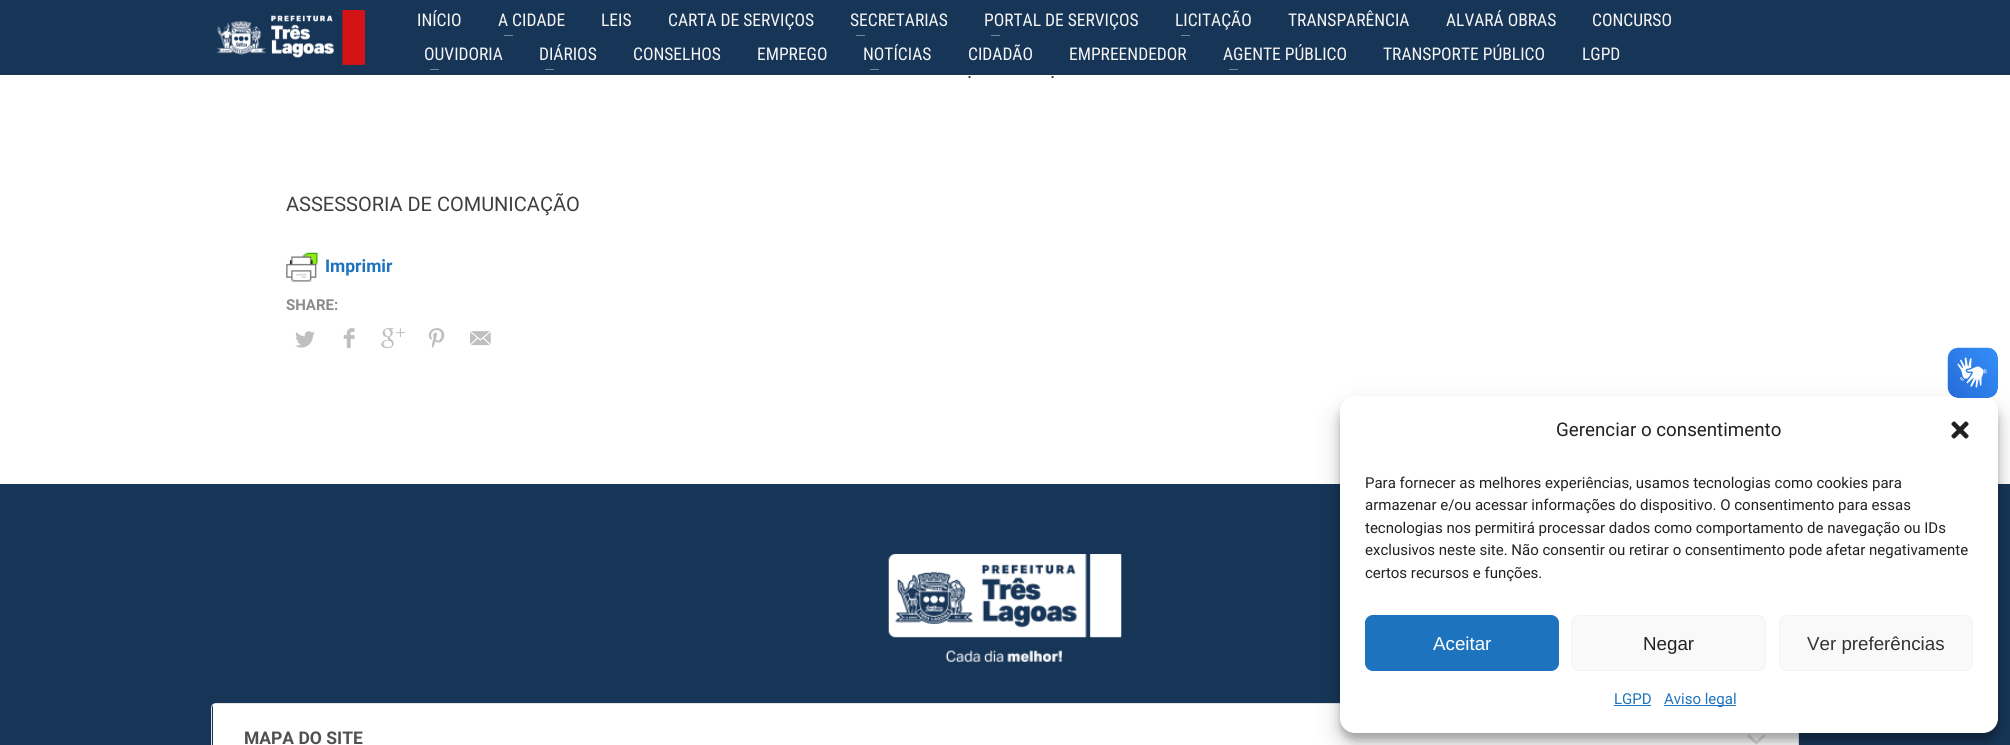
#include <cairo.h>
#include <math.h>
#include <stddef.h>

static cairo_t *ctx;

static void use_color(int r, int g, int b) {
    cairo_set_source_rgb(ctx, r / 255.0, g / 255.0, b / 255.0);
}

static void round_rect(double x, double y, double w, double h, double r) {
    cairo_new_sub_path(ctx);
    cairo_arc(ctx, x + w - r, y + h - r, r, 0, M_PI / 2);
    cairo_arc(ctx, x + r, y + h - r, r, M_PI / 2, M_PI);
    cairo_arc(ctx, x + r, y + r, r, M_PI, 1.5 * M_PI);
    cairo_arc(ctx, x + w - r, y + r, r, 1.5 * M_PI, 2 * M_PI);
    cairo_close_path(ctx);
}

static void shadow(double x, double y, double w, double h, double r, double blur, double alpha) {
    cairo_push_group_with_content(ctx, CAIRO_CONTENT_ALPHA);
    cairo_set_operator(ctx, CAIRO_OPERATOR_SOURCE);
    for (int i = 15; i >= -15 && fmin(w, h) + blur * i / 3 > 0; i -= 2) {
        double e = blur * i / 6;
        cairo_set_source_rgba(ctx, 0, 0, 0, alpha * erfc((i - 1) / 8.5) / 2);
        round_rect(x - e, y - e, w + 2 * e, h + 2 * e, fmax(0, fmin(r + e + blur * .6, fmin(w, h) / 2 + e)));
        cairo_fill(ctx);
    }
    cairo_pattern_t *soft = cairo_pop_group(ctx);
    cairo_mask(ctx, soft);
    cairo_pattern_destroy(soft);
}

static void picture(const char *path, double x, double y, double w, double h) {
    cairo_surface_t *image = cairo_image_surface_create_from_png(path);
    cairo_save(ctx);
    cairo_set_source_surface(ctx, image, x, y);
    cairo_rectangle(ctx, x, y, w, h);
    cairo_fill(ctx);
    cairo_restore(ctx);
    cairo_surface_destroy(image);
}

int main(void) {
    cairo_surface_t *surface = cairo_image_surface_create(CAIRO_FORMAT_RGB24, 2010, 745);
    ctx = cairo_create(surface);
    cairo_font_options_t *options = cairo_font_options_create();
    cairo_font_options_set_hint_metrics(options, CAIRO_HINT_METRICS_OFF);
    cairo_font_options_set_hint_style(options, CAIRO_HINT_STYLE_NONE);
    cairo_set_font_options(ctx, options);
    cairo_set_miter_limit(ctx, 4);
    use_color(255, 255, 255);
    cairo_paint(ctx);
    use_color(23, 53, 87);
    cairo_rectangle(ctx, 0, 0, 2010, 75);
    cairo_fill(ctx);
    picture("img1.png", 212, 10, 153, 55);
    cairo_select_font_face(ctx, "Roboto Condensed", CAIRO_FONT_SLANT_NORMAL, CAIRO_FONT_WEIGHT_NORMAL);
    cairo_set_font_size(ctx, 17.5);
    use_color(245, 245, 245);
    cairo_move_to(ctx, 417, 26);
    cairo_show_text(ctx, "INÍCIO");
    cairo_move_to(ctx, 498, 26);
    cairo_show_text(ctx, "A CIDADE");
    use_color(116, 134, 154);
    cairo_rectangle(ctx, 504, 35, 9, 1);
    cairo_fill(ctx);
    use_color(245, 245, 245);
    cairo_move_to(ctx, 601, 26);
    cairo_show_text(ctx, "LEIS");
    cairo_move_to(ctx, 668, 26);
    cairo_show_text(ctx, "CARTA DE SERVIÇOS");
    cairo_move_to(ctx, 850, 26);
    cairo_show_text(ctx, "SECRETARIAS");
    use_color(116, 134, 154);
    cairo_rectangle(ctx, 856, 35, 9, 1);
    cairo_fill(ctx);
    use_color(245, 245, 245);
    cairo_move_to(ctx, 984, 26);
    cairo_show_text(ctx, "PORTAL DE SERVIÇOS");
    use_color(116, 134, 154);
    cairo_rectangle(ctx, 991, 35, 9, 1);
    cairo_fill(ctx);
    use_color(245, 245, 245);
    cairo_move_to(ctx, 1175, 26);
    cairo_show_text(ctx, "LICITAÇÃO");
    use_color(116, 134, 154);
    cairo_rectangle(ctx, 1181, 35, 9, 1);
    cairo_fill(ctx);
    use_color(245, 245, 245);
    cairo_move_to(ctx, 1288, 26);
    cairo_show_text(ctx, "TRANSPARÊNCIA");
    cairo_move_to(ctx, 1446, 26);
    cairo_show_text(ctx, "ALVARÁ OBRAS");
    cairo_move_to(ctx, 1592, 26);
    cairo_show_text(ctx, "CONCURSO");
    cairo_move_to(ctx, 424, 60);
    cairo_show_text(ctx, "OUVIDORIA");
    use_color(116, 134, 154);
    cairo_rectangle(ctx, 430, 69, 9, 1);
    cairo_fill(ctx);
    use_color(245, 245, 245);
    cairo_move_to(ctx, 539, 60);
    cairo_show_text(ctx, "DIÁRIOS");
    use_color(116, 134, 154);
    cairo_rectangle(ctx, 545, 69, 9, 1);
    cairo_fill(ctx);
    use_color(245, 245, 245);
    cairo_move_to(ctx, 633, 60);
    cairo_show_text(ctx, "CONSELHOS");
    cairo_move_to(ctx, 757, 60);
    cairo_show_text(ctx, "EMPREGO");
    cairo_move_to(ctx, 863, 60);
    cairo_show_text(ctx, "NOTÍCIAS");
    use_color(116, 134, 154);
    cairo_rectangle(ctx, 870, 69, 9, 1);
    cairo_fill(ctx);
    use_color(245, 245, 245);
    cairo_move_to(ctx, 968, 60);
    cairo_show_text(ctx, "CIDADÃO");
    cairo_move_to(ctx, 1069, 60);
    cairo_show_text(ctx, "EMPREENDEDOR");
    cairo_move_to(ctx, 1223, 60);
    cairo_show_text(ctx, "AGENTE PÚBLICO");
    use_color(116, 134, 154);
    cairo_rectangle(ctx, 1229, 69, 9, 1);
    cairo_fill(ctx);
    use_color(245, 245, 245);
    cairo_move_to(ctx, 1383, 60);
    cairo_show_text(ctx, "TRANSPORTE PÚBLICO");
    cairo_move_to(ctx, 1582, 60);
    cairo_show_text(ctx, "LGPD");
    cairo_select_font_face(ctx, "Roboto", CAIRO_FONT_SLANT_NORMAL, CAIRO_FONT_WEIGHT_NORMAL);
    cairo_set_font_size(ctx, 20);
    use_color(63, 63, 63);
    cairo_move_to(ctx, 967, 78);
    cairo_show_text(ctx, ".");
    cairo_move_to(ctx, 1050, 78);
    cairo_show_text(ctx, ".");
    cairo_move_to(ctx, 286, 211);
    cairo_show_text(ctx, "ASSESSORIA DE COMUNICAÇÃO");
    picture("img2.png", 286, 252, 32, 30);
    cairo_select_font_face(ctx, "Roboto", CAIRO_FONT_SLANT_NORMAL, CAIRO_FONT_WEIGHT_BOLD);
    cairo_set_font_size(ctx, 17.5);
    use_color(30, 115, 190);
    cairo_move_to(ctx, 325, 272);
    cairo_show_text(ctx, "Imprimir");
    cairo_set_font_size(ctx, 15);
    use_color(138, 138, 138);
    cairo_move_to(ctx, 286, 310);
    cairo_show_text(ctx, "SHARE:");
    picture("img3.png", 295, 331, 20, 17);
    picture("img4.png", 343, 328, 12, 21);
    picture("img5.png", 381, 328, 24, 21);
    picture("img6.png", 428, 328, 17, 20);
    picture("img7.png", 470, 331, 21, 15);
    use_color(23, 53, 87);
    cairo_rectangle(ctx, 0, 484, 2010, 261);
    cairo_fill(ctx);
    picture("img8.png", 888, 554, 234, 108);
    round_rect(211.5, 703.5, 1587, 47, 4.5);
    use_color(227, 227, 227);
    cairo_set_line_width(ctx, 1);
    cairo_stroke(ctx);
    use_color(255, 255, 255);
    cairo_rectangle(ctx, 213, 704, 1585, 41);
    cairo_fill(ctx);
    cairo_set_font_size(ctx, 17.5);
    use_color(80, 80, 80);
    cairo_move_to(ctx, 244, 744);
    cairo_show_text(ctx, "MAPA DO SITE");
    use_color(221, 221, 221);
    cairo_new_path(ctx);
    cairo_move_to(ctx, 1749, 734);
    cairo_line_to(ctx, 1758, 743);
    cairo_line_to(ctx, 1756, 744.5);
    cairo_line_to(ctx, 1747, 736);
    cairo_close_path(ctx);
    cairo_fill(ctx);
    cairo_new_path(ctx);
    cairo_move_to(ctx, 1754.5, 743);
    cairo_line_to(ctx, 1763.5, 734);
    cairo_line_to(ctx, 1765.5, 736);
    cairo_line_to(ctx, 1756.5, 744.5);
    cairo_close_path(ctx);
    cairo_fill(ctx);
    use_color(0, 0, 0);
    shadow(1340, 404, 658, 336, 15, 4, 0.23);
    shadow(1340, 409, 658, 336, 15, 12.5, 0.19);
    use_color(255, 255, 255);
    round_rect(1340, 396, 658, 337, 15);
    cairo_fill(ctx);
    picture("img9.png", 1947, 347, 51, 51);
    picture("img10.png", 1948, 348, 50, 50);
    cairo_select_font_face(ctx, "Roboto", CAIRO_FONT_SLANT_NORMAL, CAIRO_FONT_WEIGHT_NORMAL);
    cairo_set_font_size(ctx, 18.75);
    use_color(34, 34, 34);
    cairo_move_to(ctx, 1556, 436);
    cairo_show_text(ctx, "Gerenciar o consentimento");
    picture("img11.png", 1951, 421, 18, 18);
    cairo_set_font_size(ctx, 15);
    cairo_move_to(ctx, 1365, 488);
    cairo_show_text(ctx, "Para fornecer as melhores experiências, usamos tecnologias como cookies para");
    cairo_move_to(ctx, 1365, 510);
    cairo_show_text(ctx, "armazenar e/ou acessar informações do dispositivo. O consentimento para essas");
    cairo_move_to(ctx, 1365, 533);
    cairo_show_text(ctx, "tecnologias nos permitirá processar dados como comportamento de navegação ou IDs");
    cairo_move_to(ctx, 1365, 555);
    cairo_show_text(ctx, "exclusivos neste site. Não consentir ou retirar o consentimento pode afetar negativamente");
    cairo_move_to(ctx, 1365, 578);
    cairo_show_text(ctx, "certos recursos e funções.");
    use_color(30, 115, 190);
    round_rect(1365.5, 615.5, 193, 55, 7.5);
    cairo_fill_preserve(ctx);
    cairo_stroke(ctx);
    cairo_select_font_face(ctx, "Liberation Sans", CAIRO_FONT_SLANT_NORMAL, CAIRO_FONT_WEIGHT_NORMAL);
    cairo_set_font_size(ctx, 18.75);
    use_color(255, 255, 255);
    cairo_move_to(ctx, 1433, 650);
    cairo_show_text(ctx, "Aceitar");
    use_color(249, 249, 249);
    round_rect(1571.5, 615.5, 194, 55, 7.5);
    cairo_fill_preserve(ctx);
    use_color(242, 242, 242);
    cairo_stroke(ctx);
    use_color(34, 34, 34);
    cairo_move_to(ctx, 1643, 650);
    cairo_show_text(ctx, "Negar");
    use_color(249, 249, 249);
    round_rect(1779.5, 615.5, 193, 55, 7.5);
    cairo_fill_preserve(ctx);
    use_color(242, 242, 242);
    cairo_stroke(ctx);
    use_color(51, 51, 51);
    cairo_move_to(ctx, 1807, 650);
    cairo_show_text(ctx, "Ver preferências");
    cairo_select_font_face(ctx, "Roboto", CAIRO_FONT_SLANT_NORMAL, CAIRO_FONT_WEIGHT_NORMAL);
    cairo_set_font_size(ctx, 15);
    use_color(30, 115, 190);
    cairo_move_to(ctx, 1614, 704);
    cairo_show_text(ctx, "LGPD");
    cairo_rectangle(ctx, 1614, 705, 37, 1);
    cairo_fill(ctx);
    cairo_rectangle(ctx, 1664, 705, 72, 1);
    cairo_fill(ctx);
    cairo_move_to(ctx, 1664, 704);
    cairo_show_text(ctx, "Aviso legal");
    cairo_surface_write_to_png(surface, "result.png");
    cairo_font_options_destroy(options);
    cairo_destroy(ctx);
    cairo_surface_destroy(surface);
    return 0;
}
